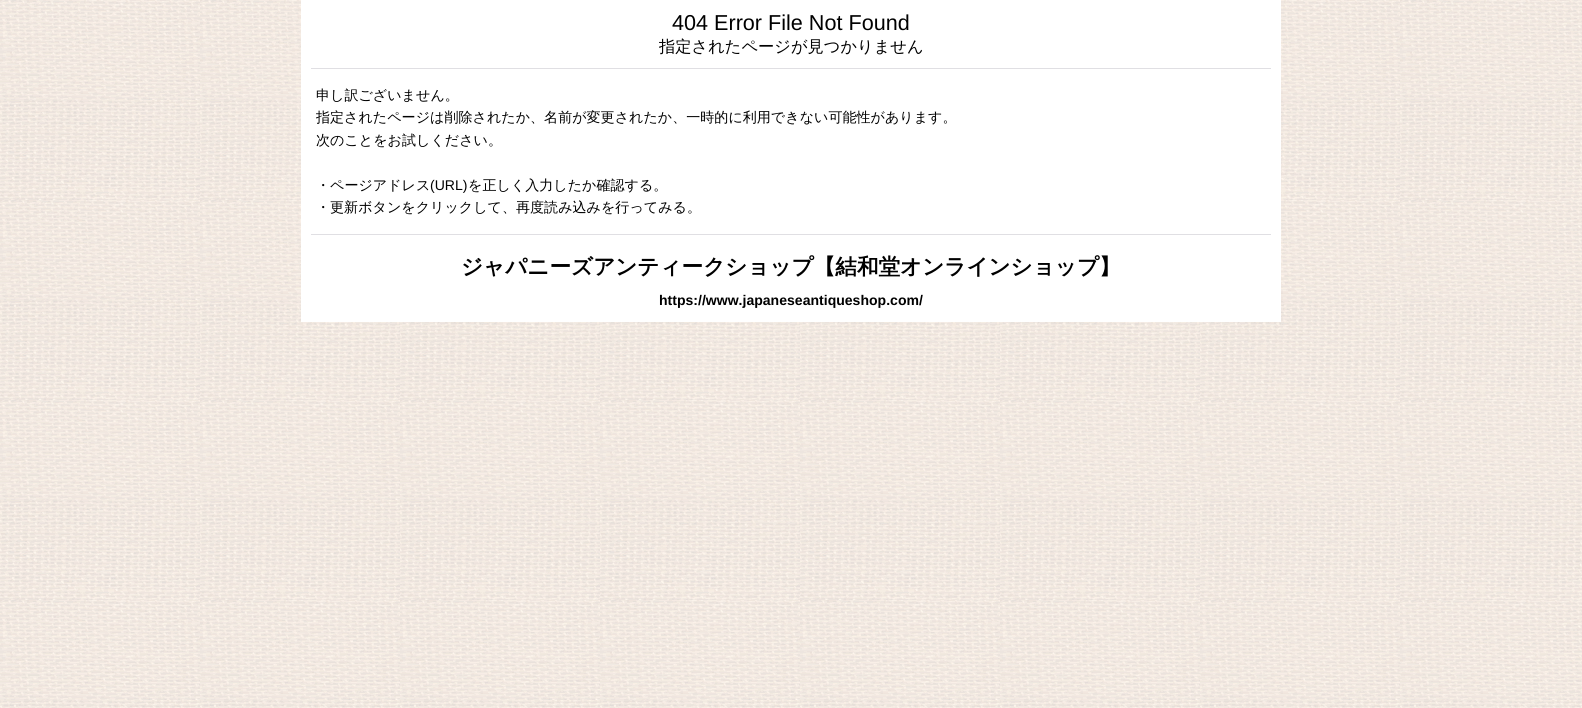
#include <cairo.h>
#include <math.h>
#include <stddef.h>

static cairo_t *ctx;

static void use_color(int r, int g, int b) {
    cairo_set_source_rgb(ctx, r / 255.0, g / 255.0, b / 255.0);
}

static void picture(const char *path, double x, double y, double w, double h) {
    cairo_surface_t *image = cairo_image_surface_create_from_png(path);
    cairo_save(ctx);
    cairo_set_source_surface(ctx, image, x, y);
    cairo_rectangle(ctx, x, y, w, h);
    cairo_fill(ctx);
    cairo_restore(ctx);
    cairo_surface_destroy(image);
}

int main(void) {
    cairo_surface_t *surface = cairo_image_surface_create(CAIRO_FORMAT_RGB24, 1582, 708);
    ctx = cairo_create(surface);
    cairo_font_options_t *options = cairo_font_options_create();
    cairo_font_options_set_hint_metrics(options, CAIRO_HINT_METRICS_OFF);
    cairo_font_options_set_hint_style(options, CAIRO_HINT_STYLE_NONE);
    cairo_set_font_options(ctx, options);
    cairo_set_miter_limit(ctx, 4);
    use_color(255, 255, 255);
    cairo_paint(ctx);
    picture("img1.png", 0, 0, 1582, 708);
    use_color(255, 255, 255);
    cairo_rectangle(ctx, 301, 0, 980, 322);
    cairo_fill(ctx);
    cairo_select_font_face(ctx, "Liberation Sans", CAIRO_FONT_SLANT_NORMAL, CAIRO_FONT_WEIGHT_NORMAL);
    cairo_set_font_size(ctx, 21.6);
    use_color(0, 0, 0);
    cairo_move_to(ctx, 672, 30);
    cairo_show_text(ctx, "404 Error File Not Found");
    cairo_select_font_face(ctx, "WenQuanYi Zen Hei Medium", CAIRO_FONT_SLANT_NORMAL, CAIRO_FONT_WEIGHT_NORMAL);
    cairo_set_font_size(ctx, 16.25);
    cairo_move_to(ctx, 659, 52);
    cairo_show_text(ctx, "指定されたページが見つかりません");
    use_color(224, 223, 227);
    cairo_rectangle(ctx, 311, 68, 960, 1);
    cairo_fill(ctx);
    cairo_rectangle(ctx, 311, 234, 960, 1);
    cairo_fill(ctx);
    cairo_set_font_size(ctx, 14.05);
    use_color(0, 0, 0);
    cairo_move_to(ctx, 316, 100);
    cairo_show_text(ctx, "申し訳ございません。");
    cairo_move_to(ctx, 316, 122);
    cairo_show_text(ctx, "指定されたページは削除されたか、名前が変更されたか、一時的に利用できない可能性があります。");
    cairo_move_to(ctx, 316, 145);
    cairo_show_text(ctx, "次のことをお試しください。");
    cairo_move_to(ctx, 316, 190);
    cairo_show_text(ctx, "・ページアドレス");
    cairo_select_font_face(ctx, "Liberation Sans", CAIRO_FONT_SLANT_NORMAL, CAIRO_FONT_WEIGHT_NORMAL);
    cairo_move_to(ctx, 430, 190);
    cairo_show_text(ctx, "(URL)");
    cairo_select_font_face(ctx, "WenQuanYi Zen Hei Medium", CAIRO_FONT_SLANT_NORMAL, CAIRO_FONT_WEIGHT_NORMAL);
    cairo_move_to(ctx, 468, 190);
    cairo_show_text(ctx, "を正しく入力したか確認する。");
    cairo_move_to(ctx, 316, 212);
    cairo_show_text(ctx, "・更新ボタンをクリックして、再度読み込みを行ってみる。");
    cairo_select_font_face(ctx, "WenQuanYi Zen Hei", CAIRO_FONT_SLANT_NORMAL, CAIRO_FONT_WEIGHT_BOLD);
    cairo_set_font_size(ctx, 21.6);
    cairo_move_to(ctx, 461, 274);
    cairo_show_text(ctx, "ジャパニーズアンティークショップ【結和堂オンラインショップ】");
    cairo_select_font_face(ctx, "Liberation Sans", CAIRO_FONT_SLANT_NORMAL, CAIRO_FONT_WEIGHT_BOLD);
    cairo_set_font_size(ctx, 14.05);
    cairo_move_to(ctx, 659, 305);
    cairo_show_text(ctx, "https://www.japaneseantiqueshop.com/");
    cairo_surface_write_to_png(surface, "result.png");
    cairo_font_options_destroy(options);
    cairo_destroy(ctx);
    cairo_surface_destroy(surface);
    return 0;
}
